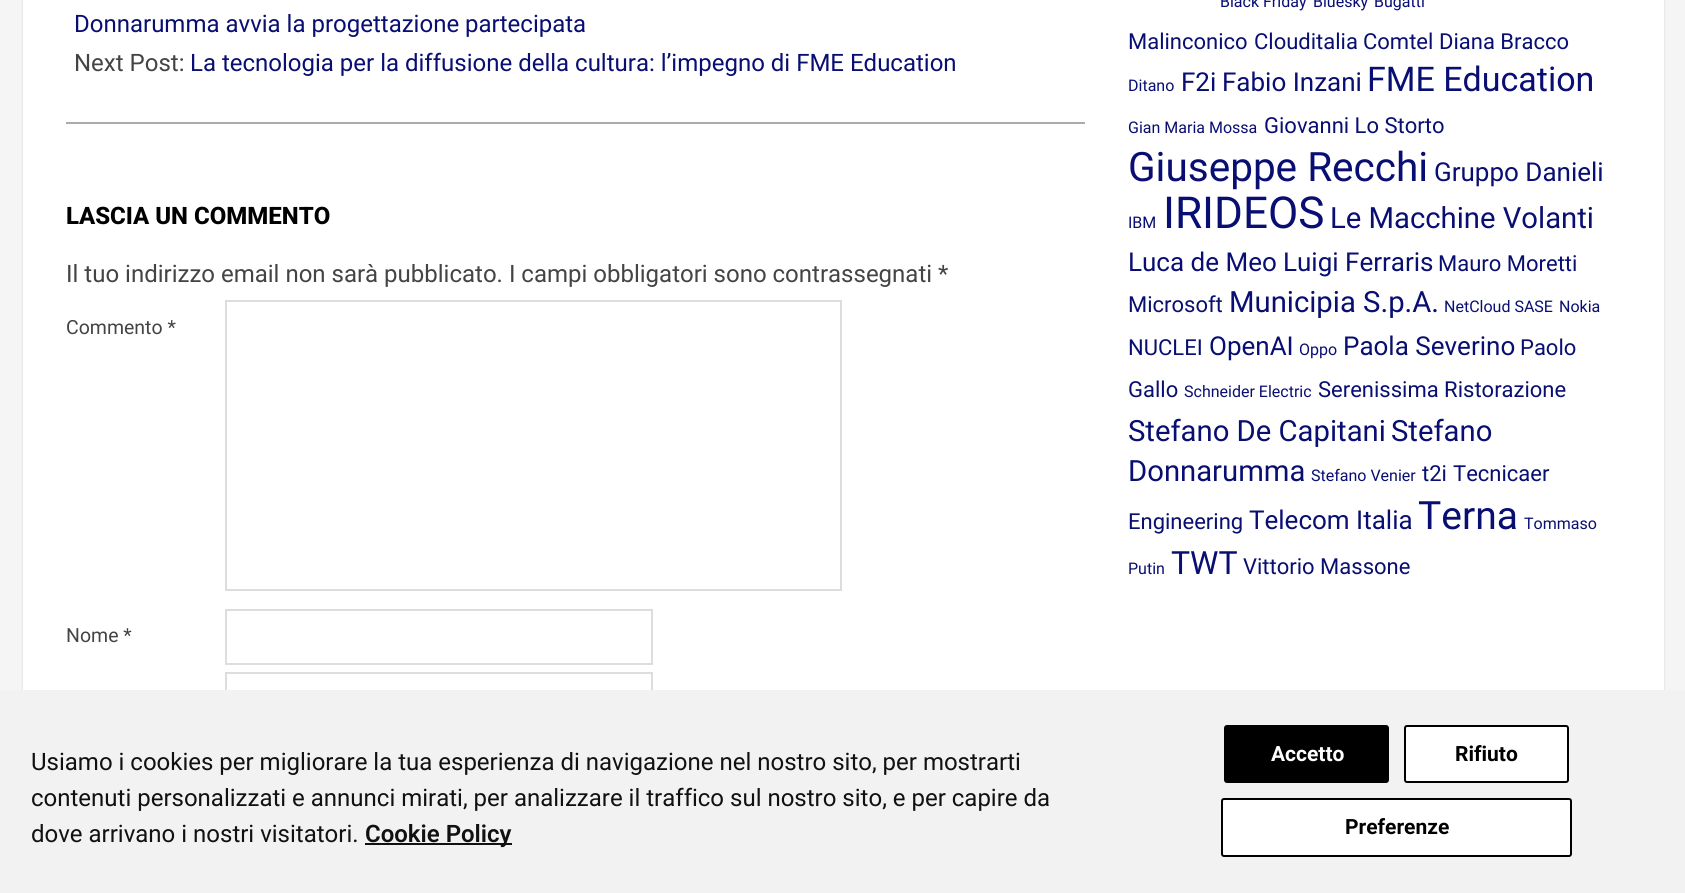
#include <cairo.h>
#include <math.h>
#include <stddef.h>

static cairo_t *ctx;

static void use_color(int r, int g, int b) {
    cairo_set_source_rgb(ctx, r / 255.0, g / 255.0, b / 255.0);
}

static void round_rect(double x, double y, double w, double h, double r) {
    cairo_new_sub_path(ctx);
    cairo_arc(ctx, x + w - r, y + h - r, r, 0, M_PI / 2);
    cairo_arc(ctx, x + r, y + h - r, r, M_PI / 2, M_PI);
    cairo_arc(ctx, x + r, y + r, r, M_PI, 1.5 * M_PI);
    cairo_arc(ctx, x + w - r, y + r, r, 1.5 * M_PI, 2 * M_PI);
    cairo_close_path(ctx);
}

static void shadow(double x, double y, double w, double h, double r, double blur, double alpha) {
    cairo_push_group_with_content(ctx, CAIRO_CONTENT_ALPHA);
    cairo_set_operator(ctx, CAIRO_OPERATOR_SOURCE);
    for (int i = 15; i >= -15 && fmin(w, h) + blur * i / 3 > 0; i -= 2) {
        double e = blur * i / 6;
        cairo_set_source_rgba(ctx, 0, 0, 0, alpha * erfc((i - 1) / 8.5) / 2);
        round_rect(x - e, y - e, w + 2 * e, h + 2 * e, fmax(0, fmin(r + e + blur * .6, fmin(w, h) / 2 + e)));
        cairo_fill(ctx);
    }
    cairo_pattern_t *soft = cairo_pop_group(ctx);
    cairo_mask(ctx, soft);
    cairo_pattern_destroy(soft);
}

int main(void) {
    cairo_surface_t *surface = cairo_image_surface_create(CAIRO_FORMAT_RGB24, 1685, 893);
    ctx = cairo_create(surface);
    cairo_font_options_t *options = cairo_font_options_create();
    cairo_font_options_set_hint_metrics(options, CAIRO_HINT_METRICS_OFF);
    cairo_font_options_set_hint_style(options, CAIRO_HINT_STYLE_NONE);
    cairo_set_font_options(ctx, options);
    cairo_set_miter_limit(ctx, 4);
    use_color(245, 245, 245);
    cairo_paint(ctx);
    use_color(0, 0, 0);
    shadow(23, -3, 1641, 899, 0, 1, 0.15);
    use_color(255, 255, 255);
    cairo_rectangle(ctx, 23, 0, 1641, 690);
    cairo_fill(ctx);
    use_color(171, 171, 171);
    cairo_rectangle(ctx, 66, 122, 1019, 2);
    cairo_fill(ctx);
    cairo_select_font_face(ctx, "Roboto", CAIRO_FONT_SLANT_NORMAL, CAIRO_FONT_WEIGHT_NORMAL);
    cairo_set_font_size(ctx, 24);
    use_color(9, 14, 114);
    cairo_move_to(ctx, 74, 32);
    cairo_show_text(ctx, "Donnarumma avvia la progettazione partecipata");
    use_color(68, 68, 68);
    cairo_move_to(ctx, 74, 71);
    cairo_show_text(ctx, "Next Post:");
    use_color(9, 14, 114);
    cairo_move_to(ctx, 190, 71);
    cairo_show_text(ctx, "La tecnologia per la diffusione della cultura: l’impegno di FME Education");
    cairo_select_font_face(ctx, "Roboto ExtraBold", CAIRO_FONT_SLANT_NORMAL, CAIRO_FONT_WEIGHT_NORMAL);
    use_color(0, 0, 0);
    cairo_move_to(ctx, 66, 224);
    cairo_show_text(ctx, "LASCIA UN COMMENTO");
    cairo_select_font_face(ctx, "Roboto", CAIRO_FONT_SLANT_NORMAL, CAIRO_FONT_WEIGHT_NORMAL);
    use_color(68, 68, 68);
    cairo_move_to(ctx, 66, 282);
    cairo_show_text(ctx, "Il tuo indirizzo email non sarà pubblicato. I campi obbligatori sono contrassegnati *");
    cairo_set_font_size(ctx, 19.5);
    cairo_move_to(ctx, 66, 334);
    cairo_show_text(ctx, "Commento *");
    cairo_rectangle(ctx, 226, 301, 615, 289);
    use_color(221, 221, 221);
    cairo_stroke(ctx);
    use_color(68, 68, 68);
    cairo_move_to(ctx, 66, 642);
    cairo_show_text(ctx, "Nome *");
    cairo_rectangle(ctx, 226, 610, 426, 54);
    use_color(221, 221, 221);
    cairo_stroke(ctx);
    cairo_rectangle(ctx, 226, 673, 426, 52);
    cairo_stroke(ctx);
    cairo_set_font_size(ctx, 16);
    use_color(9, 14, 114);
    cairo_move_to(ctx, 1220, 7);
    cairo_show_text(ctx, "Black Friday");
    cairo_move_to(ctx, 1313, 7);
    cairo_show_text(ctx, "Bluesky");
    cairo_move_to(ctx, 1374, 7);
    cairo_show_text(ctx, "Bugatti");
    cairo_set_font_size(ctx, 22);
    cairo_move_to(ctx, 1128, 49);
    cairo_show_text(ctx, "Malinconico");
    cairo_move_to(ctx, 1254, 49);
    cairo_show_text(ctx, "Clouditalia");
    cairo_move_to(ctx, 1363, 49);
    cairo_show_text(ctx, "Comtel");
    cairo_move_to(ctx, 1439, 49);
    cairo_show_text(ctx, "Diana Bracco");
    cairo_set_font_size(ctx, 16);
    cairo_move_to(ctx, 1128, 91);
    cairo_show_text(ctx, "Ditano");
    cairo_set_font_size(ctx, 26);
    cairo_move_to(ctx, 1181, 91);
    cairo_show_text(ctx, "F2i");
    cairo_move_to(ctx, 1222, 91);
    cairo_show_text(ctx, "Fabio Inzani");
    cairo_set_font_size(ctx, 34);
    cairo_move_to(ctx, 1367, 91);
    cairo_show_text(ctx, "FME Education");
    cairo_set_font_size(ctx, 16);
    cairo_move_to(ctx, 1128, 133);
    cairo_show_text(ctx, "Gian Maria Mossa");
    cairo_set_font_size(ctx, 22);
    cairo_move_to(ctx, 1264, 133);
    cairo_show_text(ctx, "Giovanni Lo Storto");
    cairo_set_font_size(ctx, 40.5);
    cairo_move_to(ctx, 1128, 181);
    cairo_show_text(ctx, "Giuseppe Recchi");
    cairo_set_font_size(ctx, 26);
    cairo_move_to(ctx, 1434, 181);
    cairo_show_text(ctx, "Gruppo Danieli");
    cairo_set_font_size(ctx, 16);
    cairo_move_to(ctx, 1128, 228);
    cairo_show_text(ctx, "IBM");
    cairo_set_font_size(ctx, 44);
    cairo_move_to(ctx, 1163, 228);
    cairo_show_text(ctx, "IRIDEOS");
    cairo_set_font_size(ctx, 29.25);
    cairo_move_to(ctx, 1330, 228);
    cairo_show_text(ctx, "Le Macchine Volanti");
    cairo_set_font_size(ctx, 26);
    cairo_move_to(ctx, 1128, 271);
    cairo_show_text(ctx, "Luca de Meo");
    cairo_move_to(ctx, 1283, 271);
    cairo_show_text(ctx, "Luigi Ferraris");
    cairo_set_font_size(ctx, 22);
    cairo_move_to(ctx, 1438, 271);
    cairo_show_text(ctx, "Mauro Moretti");
    cairo_move_to(ctx, 1128, 312);
    cairo_show_text(ctx, "Microsoft");
    cairo_set_font_size(ctx, 29.25);
    cairo_move_to(ctx, 1229, 312);
    cairo_show_text(ctx, "Municipia S.p.A.");
    cairo_set_font_size(ctx, 16);
    cairo_move_to(ctx, 1444, 312);
    cairo_show_text(ctx, "NetCloud SASE");
    cairo_move_to(ctx, 1559, 312);
    cairo_show_text(ctx, "Nokia");
    cairo_set_font_size(ctx, 22);
    cairo_move_to(ctx, 1128, 355);
    cairo_show_text(ctx, "NUCLEI");
    cairo_set_font_size(ctx, 26);
    cairo_move_to(ctx, 1209, 355);
    cairo_show_text(ctx, "OpenAI");
    cairo_set_font_size(ctx, 16);
    cairo_move_to(ctx, 1299, 355);
    cairo_show_text(ctx, "Oppo");
    cairo_set_font_size(ctx, 26);
    cairo_move_to(ctx, 1343, 355);
    cairo_show_text(ctx, "Paola Severino");
    cairo_set_font_size(ctx, 22);
    cairo_move_to(ctx, 1520, 355);
    cairo_show_text(ctx, "Paolo");
    cairo_move_to(ctx, 1128, 397);
    cairo_show_text(ctx, "Gallo");
    cairo_set_font_size(ctx, 16);
    cairo_move_to(ctx, 1184, 397);
    cairo_show_text(ctx, "Schneider Electric");
    cairo_set_font_size(ctx, 22);
    cairo_move_to(ctx, 1318, 397);
    cairo_show_text(ctx, "Serenissima Ristorazione");
    cairo_set_font_size(ctx, 29.25);
    cairo_move_to(ctx, 1128, 441);
    cairo_show_text(ctx, "Stefano De Capitani");
    cairo_move_to(ctx, 1391, 441);
    cairo_show_text(ctx, "Stefano");
    cairo_move_to(ctx, 1128, 481);
    cairo_show_text(ctx, "Donnarumma");
    cairo_set_font_size(ctx, 16);
    cairo_move_to(ctx, 1311, 481);
    cairo_show_text(ctx, "Stefano Venier");
    cairo_set_font_size(ctx, 22);
    cairo_move_to(ctx, 1422, 481);
    cairo_show_text(ctx, "t2i");
    cairo_move_to(ctx, 1453, 481);
    cairo_show_text(ctx, "Tecnicaer");
    cairo_move_to(ctx, 1128, 529);
    cairo_show_text(ctx, "Engineering");
    cairo_set_font_size(ctx, 26);
    cairo_move_to(ctx, 1249, 529);
    cairo_show_text(ctx, "Telecom Italia");
    cairo_set_font_size(ctx, 39);
    cairo_move_to(ctx, 1418, 529);
    cairo_show_text(ctx, "Terna");
    cairo_set_font_size(ctx, 16);
    cairo_move_to(ctx, 1524, 529);
    cairo_show_text(ctx, "Tommaso");
    cairo_move_to(ctx, 1128, 574);
    cairo_show_text(ctx, "Putin");
    cairo_set_font_size(ctx, 32);
    cairo_move_to(ctx, 1171, 574);
    cairo_show_text(ctx, "TWT");
    cairo_set_font_size(ctx, 22);
    cairo_move_to(ctx, 1243, 574);
    cairo_show_text(ctx, "Vittorio Massone");
    use_color(242, 242, 242);
    cairo_rectangle(ctx, 0, 690, 1685, 203);
    cairo_fill(ctx);
    cairo_set_font_size(ctx, 24);
    use_color(17, 17, 17);
    cairo_move_to(ctx, 31, 770);
    cairo_show_text(ctx, "Usiamo i cookies per migliorare la tua esperienza di navigazione nel nostro sito, per mostrarti");
    cairo_move_to(ctx, 31, 806);
    cairo_show_text(ctx, "contenuti personalizzati e annunci mirati, per analizzare il traffico sul nostro sito, e per capire da");
    cairo_move_to(ctx, 31, 842);
    cairo_show_text(ctx, "dove arrivano i nostri visitatori.");
    cairo_rectangle(ctx, 365, 843, 147, 2);
    cairo_fill(ctx);
    cairo_select_font_face(ctx, "Roboto SemiBold", CAIRO_FONT_SLANT_NORMAL, CAIRO_FONT_WEIGHT_NORMAL);
    cairo_move_to(ctx, 365, 842);
    cairo_show_text(ctx, "Cookie Policy");
    use_color(0, 0, 0);
    round_rect(1225, 726, 163, 56, 2);
    cairo_fill_preserve(ctx);
    cairo_stroke(ctx);
    cairo_select_font_face(ctx, "Roboto", CAIRO_FONT_SLANT_NORMAL, CAIRO_FONT_WEIGHT_BOLD);
    cairo_set_font_size(ctx, 21);
    use_color(255, 255, 255);
    cairo_move_to(ctx, 1271, 761);
    cairo_show_text(ctx, "Accetto");
    round_rect(1405, 726, 163, 56, 2);
    cairo_fill_preserve(ctx);
    use_color(0, 0, 0);
    cairo_stroke(ctx);
    cairo_move_to(ctx, 1455, 761);
    cairo_show_text(ctx, "Rifiuto");
    use_color(255, 255, 255);
    round_rect(1222, 799, 349, 57, 2);
    cairo_fill_preserve(ctx);
    use_color(0, 0, 0);
    cairo_stroke(ctx);
    cairo_move_to(ctx, 1345, 834);
    cairo_show_text(ctx, "Preferenze");
    cairo_surface_write_to_png(surface, "result.png");
    cairo_font_options_destroy(options);
    cairo_destroy(ctx);
    cairo_surface_destroy(surface);
    return 0;
}
